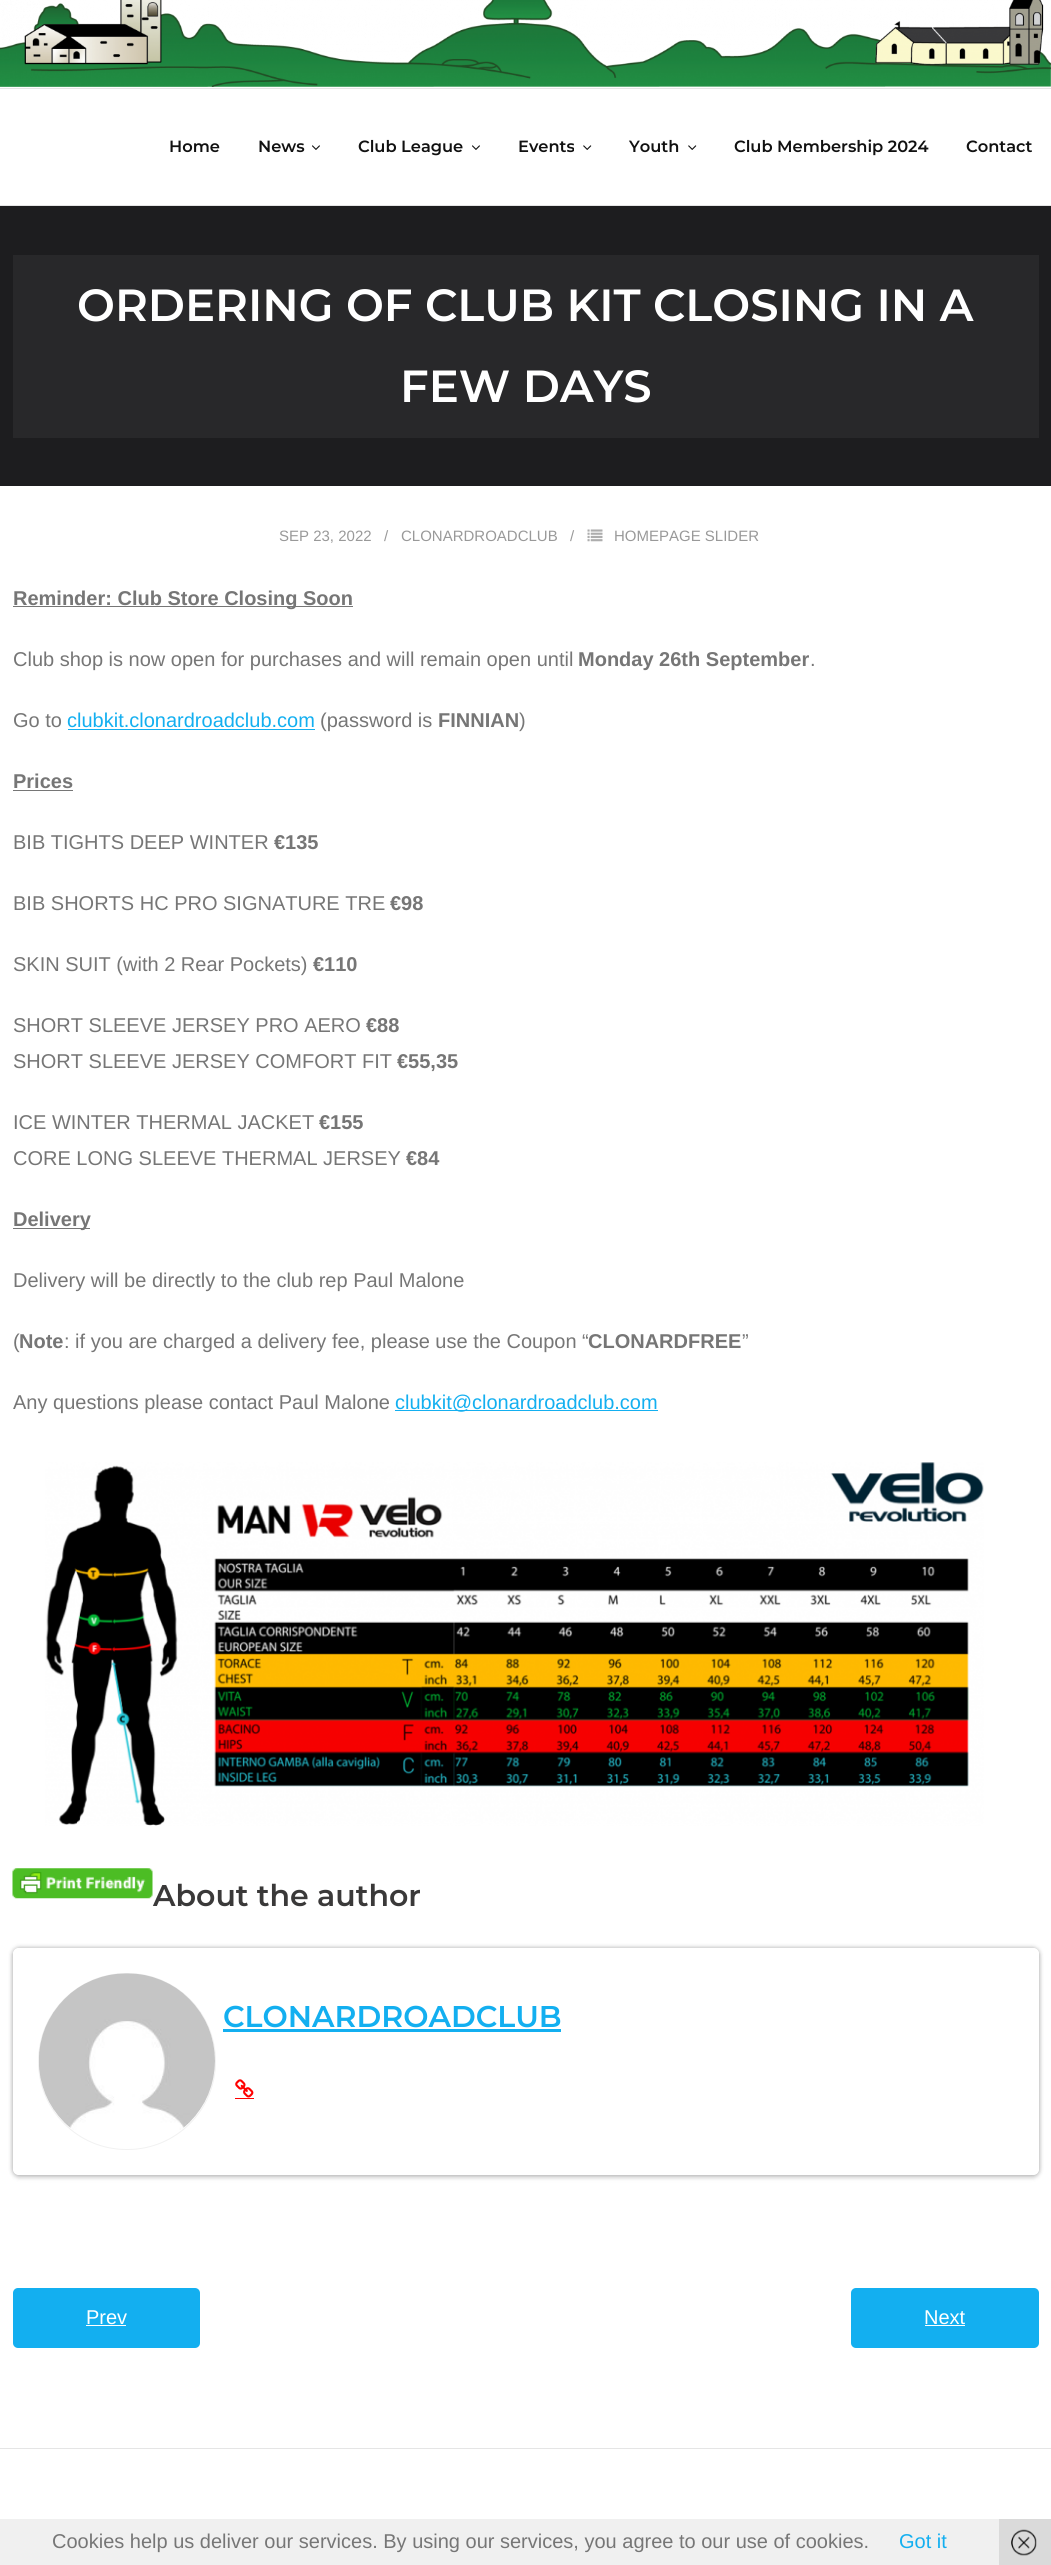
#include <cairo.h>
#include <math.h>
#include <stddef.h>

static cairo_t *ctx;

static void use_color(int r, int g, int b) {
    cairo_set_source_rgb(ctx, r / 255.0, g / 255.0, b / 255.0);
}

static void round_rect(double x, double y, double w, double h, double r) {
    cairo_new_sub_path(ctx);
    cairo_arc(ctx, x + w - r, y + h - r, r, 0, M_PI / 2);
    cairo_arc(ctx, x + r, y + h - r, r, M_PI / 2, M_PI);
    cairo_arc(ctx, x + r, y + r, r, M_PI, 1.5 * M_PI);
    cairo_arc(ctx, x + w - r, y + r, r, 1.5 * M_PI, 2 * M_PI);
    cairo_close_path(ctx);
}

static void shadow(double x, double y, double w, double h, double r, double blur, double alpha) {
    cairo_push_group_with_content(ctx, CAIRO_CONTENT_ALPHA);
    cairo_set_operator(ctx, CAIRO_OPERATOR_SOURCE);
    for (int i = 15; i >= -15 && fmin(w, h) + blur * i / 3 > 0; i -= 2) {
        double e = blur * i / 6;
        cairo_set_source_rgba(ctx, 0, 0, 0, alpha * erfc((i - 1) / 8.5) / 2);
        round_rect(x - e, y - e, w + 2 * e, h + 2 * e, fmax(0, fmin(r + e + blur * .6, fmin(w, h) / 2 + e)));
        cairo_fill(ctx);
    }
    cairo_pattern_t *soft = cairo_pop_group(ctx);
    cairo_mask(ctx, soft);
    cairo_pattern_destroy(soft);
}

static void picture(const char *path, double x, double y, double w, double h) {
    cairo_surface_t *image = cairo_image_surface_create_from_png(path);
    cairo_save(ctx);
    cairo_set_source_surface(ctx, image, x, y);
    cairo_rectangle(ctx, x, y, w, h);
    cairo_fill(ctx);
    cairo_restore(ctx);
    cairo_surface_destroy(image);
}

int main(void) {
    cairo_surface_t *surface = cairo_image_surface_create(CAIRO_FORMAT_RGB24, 1051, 2565);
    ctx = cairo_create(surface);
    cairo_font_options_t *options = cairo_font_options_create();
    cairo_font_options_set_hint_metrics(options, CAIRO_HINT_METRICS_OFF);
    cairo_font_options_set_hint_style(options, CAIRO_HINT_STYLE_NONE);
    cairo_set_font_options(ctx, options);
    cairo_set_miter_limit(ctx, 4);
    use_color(255, 255, 255);
    cairo_paint(ctx);
    picture("img1.png", 0, 0, 1051, 87);
    use_color(229, 229, 229);
    cairo_rectangle(ctx, 0, 88, 1051, 1);
    cairo_fill(ctx);
    cairo_rectangle(ctx, 0, 205, 1051, 1);
    cairo_fill(ctx);
    cairo_select_font_face(ctx, "Montserrat SemiBold", CAIRO_FONT_SLANT_NORMAL, CAIRO_FONT_WEIGHT_NORMAL);
    cairo_set_font_size(ctx, 16.25);
    use_color(17, 17, 17);
    cairo_move_to(ctx, 169, 152);
    cairo_show_text(ctx, "Home");
    cairo_move_to(ctx, 258, 152);
    cairo_show_text(ctx, "News");
    picture("img2.png", 312, 145, 8, 5);
    cairo_move_to(ctx, 358, 152);
    cairo_show_text(ctx, "Club League");
    picture("img2.png", 472, 145, 8, 5);
    cairo_move_to(ctx, 518, 152);
    cairo_show_text(ctx, "Events");
    picture("img3.png", 583, 145, 9, 5);
    cairo_move_to(ctx, 629, 152);
    cairo_show_text(ctx, "Youth");
    picture("img3.png", 688, 145, 9, 5);
    cairo_move_to(ctx, 734, 152);
    cairo_show_text(ctx, "Club Membership 2024");
    cairo_move_to(ctx, 966, 152);
    cairo_show_text(ctx, "Contact");
    use_color(29, 29, 31);
    cairo_rectangle(ctx, 0, 206, 1051, 280);
    cairo_fill(ctx);
    use_color(40, 40, 42);
    cairo_rectangle(ctx, 13, 255, 1026, 183);
    cairo_fill(ctx);
    cairo_set_font_size(ctx, 45);
    use_color(255, 255, 255);
    cairo_move_to(ctx, 77, 321);
    cairo_show_text(ctx, "ORDERING OF CLUB KIT CLOSING IN A");
    cairo_move_to(ctx, 400, 402);
    cairo_show_text(ctx, "FEW DAYS");
    cairo_select_font_face(ctx, "Liberation Sans", CAIRO_FONT_SLANT_NORMAL, CAIRO_FONT_WEIGHT_NORMAL);
    cairo_set_font_size(ctx, 15);
    use_color(153, 153, 153);
    cairo_move_to(ctx, 279, 541);
    cairo_show_text(ctx, "SEP 23, 2022");
    cairo_move_to(ctx, 384, 541);
    cairo_show_text(ctx, "/");
    cairo_move_to(ctx, 401, 541);
    cairo_show_text(ctx, "CLONARDROADCLUB");
    cairo_move_to(ctx, 570, 541);
    cairo_show_text(ctx, "/");
    picture("img4.png", 587, 529, 16, 13);
    cairo_move_to(ctx, 614, 541);
    cairo_show_text(ctx, "HOMEPAGE SLIDER");
    use_color(118, 118, 118);
    cairo_rectangle(ctx, 13, 606, 340, 1);
    cairo_fill(ctx);
    cairo_select_font_face(ctx, "Liberation Sans", CAIRO_FONT_SLANT_NORMAL, CAIRO_FONT_WEIGHT_BOLD);
    cairo_set_font_size(ctx, 20);
    cairo_move_to(ctx, 13, 605);
    cairo_show_text(ctx, "Reminder: Club Store Closing Soon");
    cairo_select_font_face(ctx, "Liberation Sans", CAIRO_FONT_SLANT_NORMAL, CAIRO_FONT_WEIGHT_NORMAL);
    cairo_move_to(ctx, 13, 666);
    cairo_show_text(ctx, "Club shop is now open for purchases and will remain open until");
    cairo_select_font_face(ctx, "Liberation Sans", CAIRO_FONT_SLANT_NORMAL, CAIRO_FONT_WEIGHT_BOLD);
    cairo_move_to(ctx, 578, 666);
    cairo_show_text(ctx, "Monday 26th September");
    cairo_select_font_face(ctx, "Liberation Sans", CAIRO_FONT_SLANT_NORMAL, CAIRO_FONT_WEIGHT_NORMAL);
    cairo_move_to(ctx, 810, 666);
    cairo_show_text(ctx, ".");
    cairo_move_to(ctx, 13, 727);
    cairo_show_text(ctx, "Go to");
    use_color(19, 175, 240);
    cairo_move_to(ctx, 67, 727);
    cairo_show_text(ctx, "clubkit.clonardroadclub.com");
    cairo_rectangle(ctx, 68, 729, 247, 1);
    cairo_fill(ctx);
    use_color(118, 118, 118);
    cairo_move_to(ctx, 320, 727);
    cairo_show_text(ctx, "(password is");
    cairo_select_font_face(ctx, "Liberation Sans", CAIRO_FONT_SLANT_NORMAL, CAIRO_FONT_WEIGHT_BOLD);
    cairo_move_to(ctx, 438, 727);
    cairo_show_text(ctx, "FINNIAN");
    cairo_select_font_face(ctx, "Liberation Sans", CAIRO_FONT_SLANT_NORMAL, CAIRO_FONT_WEIGHT_NORMAL);
    cairo_move_to(ctx, 519, 727);
    cairo_show_text(ctx, ")");
    cairo_select_font_face(ctx, "Liberation Sans", CAIRO_FONT_SLANT_NORMAL, CAIRO_FONT_WEIGHT_BOLD);
    cairo_move_to(ctx, 13, 788);
    cairo_show_text(ctx, "Prices");
    cairo_rectangle(ctx, 13, 790, 60, 1);
    cairo_fill(ctx);
    cairo_select_font_face(ctx, "Liberation Sans", CAIRO_FONT_SLANT_NORMAL, CAIRO_FONT_WEIGHT_NORMAL);
    cairo_move_to(ctx, 13, 849);
    cairo_show_text(ctx, "BIB TIGHTS DEEP WINTER");
    cairo_select_font_face(ctx, "Liberation Sans", CAIRO_FONT_SLANT_NORMAL, CAIRO_FONT_WEIGHT_BOLD);
    cairo_move_to(ctx, 274, 849);
    cairo_show_text(ctx, "€135");
    cairo_select_font_face(ctx, "Liberation Sans", CAIRO_FONT_SLANT_NORMAL, CAIRO_FONT_WEIGHT_NORMAL);
    cairo_move_to(ctx, 13, 910);
    cairo_show_text(ctx, "BIB SHORTS HC PRO SIGNATURE TRE");
    cairo_select_font_face(ctx, "Liberation Sans", CAIRO_FONT_SLANT_NORMAL, CAIRO_FONT_WEIGHT_BOLD);
    cairo_move_to(ctx, 390, 910);
    cairo_show_text(ctx, "€98");
    cairo_select_font_face(ctx, "Liberation Sans", CAIRO_FONT_SLANT_NORMAL, CAIRO_FONT_WEIGHT_NORMAL);
    cairo_move_to(ctx, 13, 971);
    cairo_show_text(ctx, "SKIN SUIT (with 2 Rear Pockets)");
    cairo_select_font_face(ctx, "Liberation Sans", CAIRO_FONT_SLANT_NORMAL, CAIRO_FONT_WEIGHT_BOLD);
    cairo_move_to(ctx, 313, 971);
    cairo_show_text(ctx, "€110");
    cairo_select_font_face(ctx, "Liberation Sans", CAIRO_FONT_SLANT_NORMAL, CAIRO_FONT_WEIGHT_NORMAL);
    cairo_move_to(ctx, 13, 1032);
    cairo_show_text(ctx, "SHORT SLEEVE JERSEY PRO AERO");
    cairo_select_font_face(ctx, "Liberation Sans", CAIRO_FONT_SLANT_NORMAL, CAIRO_FONT_WEIGHT_BOLD);
    cairo_move_to(ctx, 366, 1032);
    cairo_show_text(ctx, "€88");
    cairo_select_font_face(ctx, "Liberation Sans", CAIRO_FONT_SLANT_NORMAL, CAIRO_FONT_WEIGHT_NORMAL);
    cairo_move_to(ctx, 13, 1068);
    cairo_show_text(ctx, "SHORT SLEEVE JERSEY COMFORT FIT");
    cairo_select_font_face(ctx, "Liberation Sans", CAIRO_FONT_SLANT_NORMAL, CAIRO_FONT_WEIGHT_BOLD);
    cairo_move_to(ctx, 397, 1068);
    cairo_show_text(ctx, "€55,35");
    cairo_select_font_face(ctx, "Liberation Sans", CAIRO_FONT_SLANT_NORMAL, CAIRO_FONT_WEIGHT_NORMAL);
    cairo_move_to(ctx, 13, 1129);
    cairo_show_text(ctx, "ICE WINTER THERMAL JACKET");
    cairo_select_font_face(ctx, "Liberation Sans", CAIRO_FONT_SLANT_NORMAL, CAIRO_FONT_WEIGHT_BOLD);
    cairo_move_to(ctx, 319, 1129);
    cairo_show_text(ctx, "€155");
    cairo_select_font_face(ctx, "Liberation Sans", CAIRO_FONT_SLANT_NORMAL, CAIRO_FONT_WEIGHT_NORMAL);
    cairo_move_to(ctx, 13, 1165);
    cairo_show_text(ctx, "CORE LONG SLEEVE THERMAL JERSEY");
    cairo_select_font_face(ctx, "Liberation Sans", CAIRO_FONT_SLANT_NORMAL, CAIRO_FONT_WEIGHT_BOLD);
    cairo_move_to(ctx, 406, 1165);
    cairo_show_text(ctx, "€84");
    cairo_rectangle(ctx, 13, 1228, 77, 1);
    cairo_fill(ctx);
    cairo_move_to(ctx, 13, 1226);
    cairo_show_text(ctx, "Delivery");
    cairo_select_font_face(ctx, "Liberation Sans", CAIRO_FONT_SLANT_NORMAL, CAIRO_FONT_WEIGHT_NORMAL);
    cairo_move_to(ctx, 13, 1287);
    cairo_show_text(ctx, "Delivery will be directly to the club rep Paul Malone");
    cairo_move_to(ctx, 13, 1348);
    cairo_show_text(ctx, "(");
    cairo_select_font_face(ctx, "Liberation Sans", CAIRO_FONT_SLANT_NORMAL, CAIRO_FONT_WEIGHT_BOLD);
    cairo_move_to(ctx, 19, 1348);
    cairo_show_text(ctx, "Note");
    cairo_select_font_face(ctx, "Liberation Sans", CAIRO_FONT_SLANT_NORMAL, CAIRO_FONT_WEIGHT_NORMAL);
    cairo_move_to(ctx, 64, 1348);
    cairo_show_text(ctx, ": if you are charged a delivery fee, please use the Coupon “");
    cairo_select_font_face(ctx, "Liberation Sans", CAIRO_FONT_SLANT_NORMAL, CAIRO_FONT_WEIGHT_BOLD);
    cairo_move_to(ctx, 588, 1348);
    cairo_show_text(ctx, "CLONARDFREE");
    cairo_select_font_face(ctx, "Liberation Sans", CAIRO_FONT_SLANT_NORMAL, CAIRO_FONT_WEIGHT_NORMAL);
    cairo_move_to(ctx, 742, 1348);
    cairo_show_text(ctx, "”");
    cairo_move_to(ctx, 13, 1409);
    cairo_show_text(ctx, "Any questions please contact Paul Malone");
    use_color(19, 175, 240);
    cairo_rectangle(ctx, 395, 1410, 263, 1);
    cairo_fill(ctx);
    cairo_move_to(ctx, 395, 1409);
    cairo_show_text(ctx, "clubkit@clonardroadclub.com");
    picture("img5.png", 45, 1462, 939, 364);
    cairo_select_font_face(ctx, "Montserrat SemiBold", CAIRO_FONT_SLANT_NORMAL, CAIRO_FONT_WEIGHT_NORMAL);
    cairo_set_font_size(ctx, 30);
    use_color(58, 57, 57);
    cairo_move_to(ctx, 153, 1906);
    cairo_show_text(ctx, "About the author");
    picture("img6.png", 12, 1868, 141, 31);
    cairo_save(ctx);
    cairo_set_fill_rule(ctx, CAIRO_FILL_RULE_EVEN_ODD);
    cairo_new_path(ctx);
    cairo_move_to(ctx, 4, 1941);
    cairo_line_to(ctx, 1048, 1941);
    cairo_line_to(ctx, 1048, 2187);
    cairo_line_to(ctx, 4, 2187);
    cairo_close_path(ctx);
    cairo_move_to(ctx, 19, 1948);
    cairo_line_to(ctx, 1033, 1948);
    cairo_curve_to(ctx, 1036.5, 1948, 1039, 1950.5, 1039, 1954);
    cairo_line_to(ctx, 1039, 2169);
    cairo_curve_to(ctx, 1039, 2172.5, 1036.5, 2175, 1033, 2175);
    cairo_line_to(ctx, 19, 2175);
    cairo_curve_to(ctx, 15.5, 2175, 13, 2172.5, 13, 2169);
    cairo_line_to(ctx, 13, 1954);
    cairo_curve_to(ctx, 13, 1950.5, 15.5, 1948, 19, 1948);
    cairo_close_path(ctx);
    cairo_clip(ctx);
    use_color(0, 0, 0);
    shadow(13, 1950, 1026, 228, 6, 2.5, 0.12);
    cairo_restore(ctx);
    cairo_save(ctx);
    cairo_set_fill_rule(ctx, CAIRO_FILL_RULE_EVEN_ODD);
    cairo_new_path(ctx);
    cairo_move_to(ctx, 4, 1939);
    cairo_line_to(ctx, 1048, 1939);
    cairo_line_to(ctx, 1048, 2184);
    cairo_line_to(ctx, 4, 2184);
    cairo_close_path(ctx);
    cairo_move_to(ctx, 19, 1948);
    cairo_line_to(ctx, 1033, 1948);
    cairo_curve_to(ctx, 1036.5, 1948, 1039, 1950.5, 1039, 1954);
    cairo_line_to(ctx, 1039, 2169);
    cairo_curve_to(ctx, 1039, 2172.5, 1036.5, 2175, 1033, 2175);
    cairo_line_to(ctx, 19, 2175);
    cairo_curve_to(ctx, 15.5, 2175, 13, 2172.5, 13, 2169);
    cairo_line_to(ctx, 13, 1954);
    cairo_curve_to(ctx, 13, 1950.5, 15.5, 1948, 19, 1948);
    cairo_close_path(ctx);
    cairo_clip(ctx);
    use_color(0, 0, 0);
    shadow(13, 1948, 1026, 227, 6, 2.5, 0.31);
    cairo_restore(ctx);
    round_rect(38.5, 1973.5, 177, 176, 88);
    use_color(241, 241, 241);
    cairo_set_line_width(ctx, 1);
    cairo_stroke(ctx);
    picture("img7.png", 39, 1973, 176, 157);
    use_color(19, 175, 240);
    cairo_move_to(ctx, 223, 2027);
    cairo_show_text(ctx, "CLONARDROADCLUB");
    cairo_rectangle(ctx, 223, 2029, 338, 3);
    cairo_fill(ctx);
    picture("img8.png", 235, 2079, 19, 19);
    use_color(255, 0, 0);
    cairo_rectangle(ctx, 235, 2098, 19, 1);
    cairo_fill(ctx);
    use_color(19, 175, 240);
    round_rect(13, 2288, 187, 60, 5);
    cairo_fill(ctx);
    cairo_select_font_face(ctx, "Liberation Sans", CAIRO_FONT_SLANT_NORMAL, CAIRO_FONT_WEIGHT_NORMAL);
    cairo_set_font_size(ctx, 20);
    use_color(255, 255, 255);
    cairo_move_to(ctx, 86, 2324);
    cairo_show_text(ctx, "Prev");
    cairo_rectangle(ctx, 86, 2325, 40, 1);
    cairo_fill(ctx);
    use_color(19, 175, 240);
    round_rect(851, 2288, 188, 60, 5);
    cairo_fill(ctx);
    use_color(255, 255, 255);
    cairo_move_to(ctx, 924, 2324);
    cairo_show_text(ctx, "Next");
    cairo_rectangle(ctx, 925, 2325, 40, 1);
    cairo_fill(ctx);
    use_color(229, 229, 229);
    cairo_rectangle(ctx, 0, 2448, 1051, 1);
    cairo_fill(ctx);
    use_color(240, 240, 240);
    cairo_rectangle(ctx, 0, 2519, 999, 46);
    cairo_fill(ctx);
    use_color(118, 118, 118);
    cairo_move_to(ctx, 52, 2548);
    cairo_show_text(ctx, "Cookies help us deliver our services. By using our services, you agree to our use of cookies.");
    use_color(19, 175, 240);
    cairo_move_to(ctx, 899, 2548);
    cairo_show_text(ctx, "Got it");
    use_color(218, 218, 218);
    cairo_rectangle(ctx, 999, 2519, 52, 46);
    cairo_fill(ctx);
    picture("img9.png", 1011, 2529, 26, 27);
    cairo_surface_write_to_png(surface, "result.png");
    cairo_font_options_destroy(options);
    cairo_destroy(ctx);
    cairo_surface_destroy(surface);
    return 0;
}
